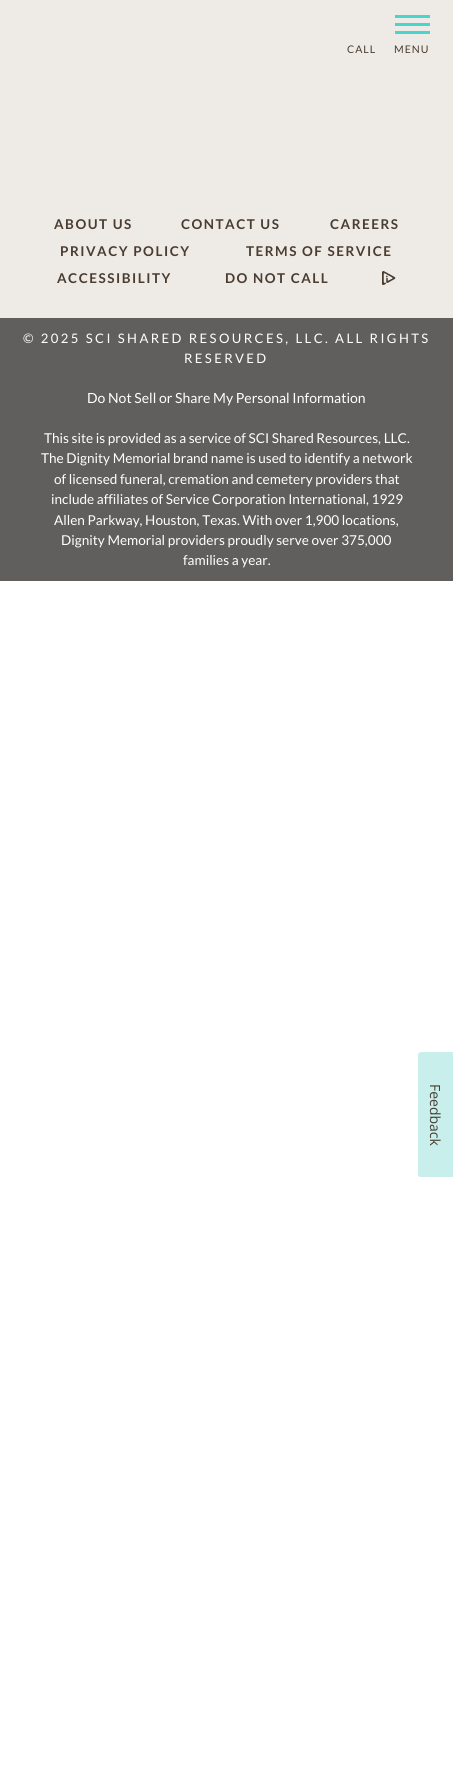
#include <cairo.h>
#include <math.h>
#include <stddef.h>

static cairo_t *ctx;

static void use_color(int r, int g, int b) {
    cairo_set_source_rgb(ctx, r / 255.0, g / 255.0, b / 255.0);
}

static void spaced_text(double x, double y, const char *s, double letter, double word) {
    cairo_move_to(ctx, x, y);
    while (*s) {
        char ch[5] = {0};
        int n = 0;
        do ch[n++] = *s++; while ((*s & 0xC0) == 0x80);
        cairo_show_text(ctx, ch);
        cairo_rel_move_to(ctx, letter + word * (*ch == ' '), 0);
    }
}

static void picture(const char *path, double x, double y, double w, double h) {
    cairo_surface_t *image = cairo_image_surface_create_from_png(path);
    cairo_save(ctx);
    cairo_set_source_surface(ctx, image, x, y);
    cairo_rectangle(ctx, x, y, w, h);
    cairo_fill(ctx);
    cairo_restore(ctx);
    cairo_surface_destroy(image);
}

int main(void) {
    cairo_surface_t *surface = cairo_image_surface_create(CAIRO_FORMAT_RGB24, 453, 1772);
    ctx = cairo_create(surface);
    cairo_font_options_t *options = cairo_font_options_create();
    cairo_font_options_set_hint_metrics(options, CAIRO_HINT_METRICS_OFF);
    cairo_font_options_set_hint_style(options, CAIRO_HINT_STYLE_NONE);
    cairo_set_font_options(ctx, options);
    cairo_set_miter_limit(ctx, 4);
    use_color(255, 255, 255);
    cairo_paint(ctx);
    use_color(238, 235, 230);
    cairo_rectangle(ctx, 0, 0, 453, 318);
    cairo_fill(ctx);
    cairo_select_font_face(ctx, "Lato", CAIRO_FONT_SLANT_NORMAL, CAIRO_FONT_WEIGHT_NORMAL);
    cairo_set_font_size(ctx, 10.5);
    use_color(74, 60, 49);
    spaced_text(347, 53, "CALL", 1, 0);
    use_color(71, 213, 205);
    cairo_rectangle(ctx, 395, 23, 35, 3);
    cairo_fill(ctx);
    cairo_rectangle(ctx, 395, 15, 35, 3);
    cairo_fill(ctx);
    cairo_rectangle(ctx, 395, 31, 35, 3);
    cairo_fill(ctx);
    use_color(74, 60, 49);
    spaced_text(394, 53, "MENU", 1, 0);
    cairo_select_font_face(ctx, "Lato", CAIRO_FONT_SLANT_NORMAL, CAIRO_FONT_WEIGHT_BOLD);
    cairo_set_font_size(ctx, 13.5);
    spaced_text(54, 229, "ABOUT US", 1.5, 0);
    spaced_text(181, 229, "CONTACT US", 1.5, 0);
    spaced_text(330, 229, "CAREERS", 1.5, 0);
    spaced_text(60, 256, "PRIVACY POLICY", 1.5, 0);
    spaced_text(246, 256, "TERMS OF SERVICE", 1.5, 0);
    spaced_text(57, 283, "ACCESSIBILITY", 1.5, 0);
    spaced_text(225, 283, "DO NOT CALL", 1.5, 0);
    picture("img1.png", 382, 271, 14, 14);
    use_color(96, 95, 94);
    cairo_rectangle(ctx, 0, 318, 453, 263);
    cairo_fill(ctx);
    cairo_select_font_face(ctx, "Lato", CAIRO_FONT_SLANT_NORMAL, CAIRO_FONT_WEIGHT_NORMAL);
    cairo_set_font_size(ctx, 13.1);
    use_color(255, 255, 255);
    spaced_text(23, 343, "© 2025 SCI SHARED RESOURCES, LLC. ALL RIGHTS", 2.4, 0);
    spaced_text(184, 363, "RESERVED", 2.4, 0);
    cairo_set_font_size(ctx, 14);
    cairo_move_to(ctx, 87, 403);
    cairo_show_text(ctx, "Do Not Sell or Share My Personal Information");
    cairo_set_font_size(ctx, 13.6);
    cairo_move_to(ctx, 44, 443);
    cairo_show_text(ctx, "This site is provided as a service of SCI Shared Resources, LLC.");
    cairo_move_to(ctx, 41, 463);
    cairo_show_text(ctx, "The Dignity Memorial brand name is used to identify a network");
    cairo_move_to(ctx, 54, 484);
    cairo_show_text(ctx, "of licensed funeral, cremation and cemetery providers that");
    cairo_move_to(ctx, 51, 504);
    cairo_show_text(ctx, "include affiliates of Service Corporation International, 1929");
    cairo_move_to(ctx, 54, 525);
    cairo_show_text(ctx, "Allen Parkway, Houston, Texas. With over 1,900 locations,");
    cairo_move_to(ctx, 61, 545);
    cairo_show_text(ctx, "Dignity Memorial providers proudly serve over 375,000");
    cairo_move_to(ctx, 183, 565);
    cairo_show_text(ctx, "families a year.");
    use_color(200, 239, 236);
    cairo_new_path(ctx);
    cairo_move_to(ctx, 453, 1052);
    cairo_line_to(ctx, 453, 1177);
    cairo_line_to(ctx, 421, 1177);
    cairo_curve_to(ctx, 419, 1177, 418, 1176, 418, 1174);
    cairo_line_to(ctx, 418, 1055);
    cairo_curve_to(ctx, 418, 1054, 419, 1052, 421, 1052);
    cairo_close_path(ctx);
    cairo_fill(ctx);
    cairo_select_font_face(ctx, "Open Sans", CAIRO_FONT_SLANT_NORMAL, CAIRO_FONT_WEIGHT_NORMAL);
    cairo_set_font_size(ctx, 14);
    use_color(74, 60, 49);
    cairo_save(ctx);
    cairo_translate(ctx, 430, 1084);
    cairo_rotate(ctx, 90 * M_PI / 180);
    cairo_move_to(ctx, 0, 0);
    cairo_show_text(ctx, "Feedback");
    cairo_restore(ctx);
    cairo_surface_write_to_png(surface, "result.png");
    cairo_font_options_destroy(options);
    cairo_destroy(ctx);
    cairo_surface_destroy(surface);
    return 0;
}
